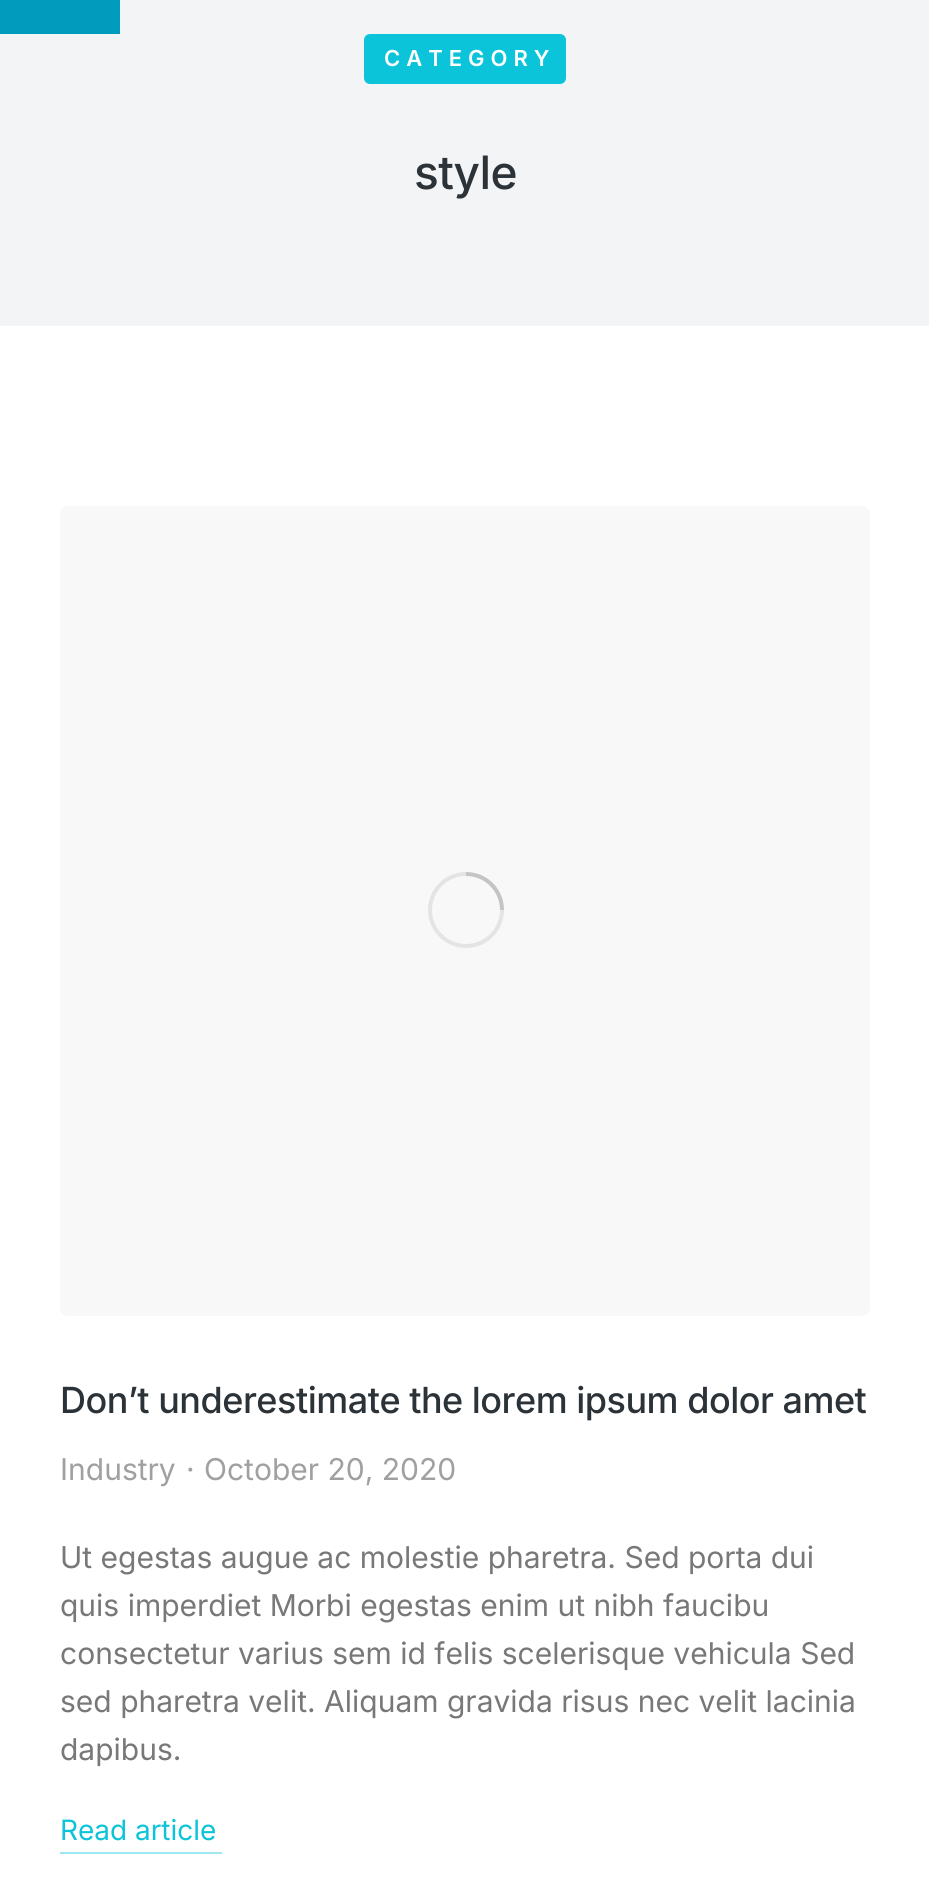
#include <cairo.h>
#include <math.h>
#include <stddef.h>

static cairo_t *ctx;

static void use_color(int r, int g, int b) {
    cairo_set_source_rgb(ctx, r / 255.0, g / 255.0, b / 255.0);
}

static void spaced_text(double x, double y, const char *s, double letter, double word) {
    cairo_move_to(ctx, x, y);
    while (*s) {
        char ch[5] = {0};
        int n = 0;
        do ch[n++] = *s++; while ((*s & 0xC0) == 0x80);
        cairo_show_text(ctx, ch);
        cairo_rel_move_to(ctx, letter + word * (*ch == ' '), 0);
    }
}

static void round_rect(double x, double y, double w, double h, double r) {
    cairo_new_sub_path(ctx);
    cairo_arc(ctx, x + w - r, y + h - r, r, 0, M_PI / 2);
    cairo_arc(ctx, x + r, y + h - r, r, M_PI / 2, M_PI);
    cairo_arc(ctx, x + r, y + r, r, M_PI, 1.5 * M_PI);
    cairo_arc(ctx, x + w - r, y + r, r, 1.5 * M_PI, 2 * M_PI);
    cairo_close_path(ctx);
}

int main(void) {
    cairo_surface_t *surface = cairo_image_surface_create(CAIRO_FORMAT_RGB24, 929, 1889);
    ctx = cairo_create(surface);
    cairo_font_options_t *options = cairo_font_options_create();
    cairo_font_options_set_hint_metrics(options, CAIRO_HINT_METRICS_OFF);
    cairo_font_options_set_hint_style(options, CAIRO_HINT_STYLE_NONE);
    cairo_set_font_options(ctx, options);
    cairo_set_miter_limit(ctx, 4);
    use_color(255, 255, 255);
    cairo_paint(ctx);
    use_color(242, 244, 246);
    cairo_rectangle(ctx, 0, 0, 929, 326);
    cairo_fill(ctx);
    use_color(1, 156, 189);
    cairo_rectangle(ctx, 0, 0, 120, 34);
    cairo_fill(ctx);
    use_color(11, 196, 217);
    round_rect(364, 34, 202, 50, 6);
    cairo_fill(ctx);
    cairo_select_font_face(ctx, "Inter SemiBold", CAIRO_FONT_SLANT_NORMAL, CAIRO_FONT_WEIGHT_NORMAL);
    cairo_set_font_size(ctx, 22);
    use_color(255, 255, 255);
    spaced_text(384, 66, "CATEGORY", 6, 0);
    cairo_select_font_face(ctx, "Inter Medium", CAIRO_FONT_SLANT_NORMAL, CAIRO_FONT_WEIGHT_NORMAL);
    cairo_set_font_size(ctx, 46);
    use_color(44, 51, 56);
    spaced_text(414, 189, "style", -0.5, 0);
    use_color(248, 248, 248);
    round_rect(60, 506, 810, 810, 8);
    cairo_fill(ctx);
    cairo_arc(ctx, 466, 910, 36, 0, 2 * M_PI);
    use_color(228, 228, 228);
    cairo_set_line_width(ctx, 4);
    cairo_stroke(ctx);
    cairo_new_path(ctx);
    cairo_move_to(ctx, 502, 910);
    cairo_curve_to(ctx, 502, 890, 486, 874, 466, 874);
    cairo_set_source_rgba(ctx, 0.4, 0.4, 0.4, 0.25);
    cairo_stroke(ctx);
    cairo_set_font_size(ctx, 36);
    use_color(44, 51, 56);
    spaced_text(60, 1413, "Don’t underestimate the lorem ipsum dolor amet", -0.5, 0);
    cairo_select_font_face(ctx, "Inter", CAIRO_FONT_SLANT_NORMAL, CAIRO_FONT_WEIGHT_NORMAL);
    cairo_set_font_size(ctx, 30);
    use_color(160, 160, 160);
    cairo_move_to(ctx, 60, 1480);
    cairo_show_text(ctx, "Industry");
    cairo_move_to(ctx, 186, 1480);
    cairo_show_text(ctx, "·");
    cairo_move_to(ctx, 204, 1480);
    cairo_show_text(ctx, "October 20, 2020");
    use_color(120, 120, 120);
    cairo_move_to(ctx, 60, 1568);
    cairo_show_text(ctx, "Ut egestas augue ac molestie pharetra. Sed porta dui");
    cairo_move_to(ctx, 60, 1616);
    cairo_show_text(ctx, "quis imperdiet Morbi egestas enim ut nibh faucibu");
    cairo_move_to(ctx, 60, 1664);
    cairo_show_text(ctx, "consectetur varius sem id felis scelerisque vehicula Sed");
    cairo_move_to(ctx, 60, 1712);
    cairo_show_text(ctx, "sed pharetra velit. Aliquam gravida risus nec velit lacinia");
    cairo_move_to(ctx, 60, 1760);
    cairo_show_text(ctx, "dapibus.");
    use_color(157, 231, 240);
    cairo_rectangle(ctx, 60, 1852, 162, 2);
    cairo_fill(ctx);
    cairo_set_font_size(ctx, 28);
    use_color(11, 196, 217);
    cairo_move_to(ctx, 60, 1840);
    cairo_show_text(ctx, "Read article");
    cairo_surface_write_to_png(surface, "result.png");
    cairo_font_options_destroy(options);
    cairo_destroy(ctx);
    cairo_surface_destroy(surface);
    return 0;
}
